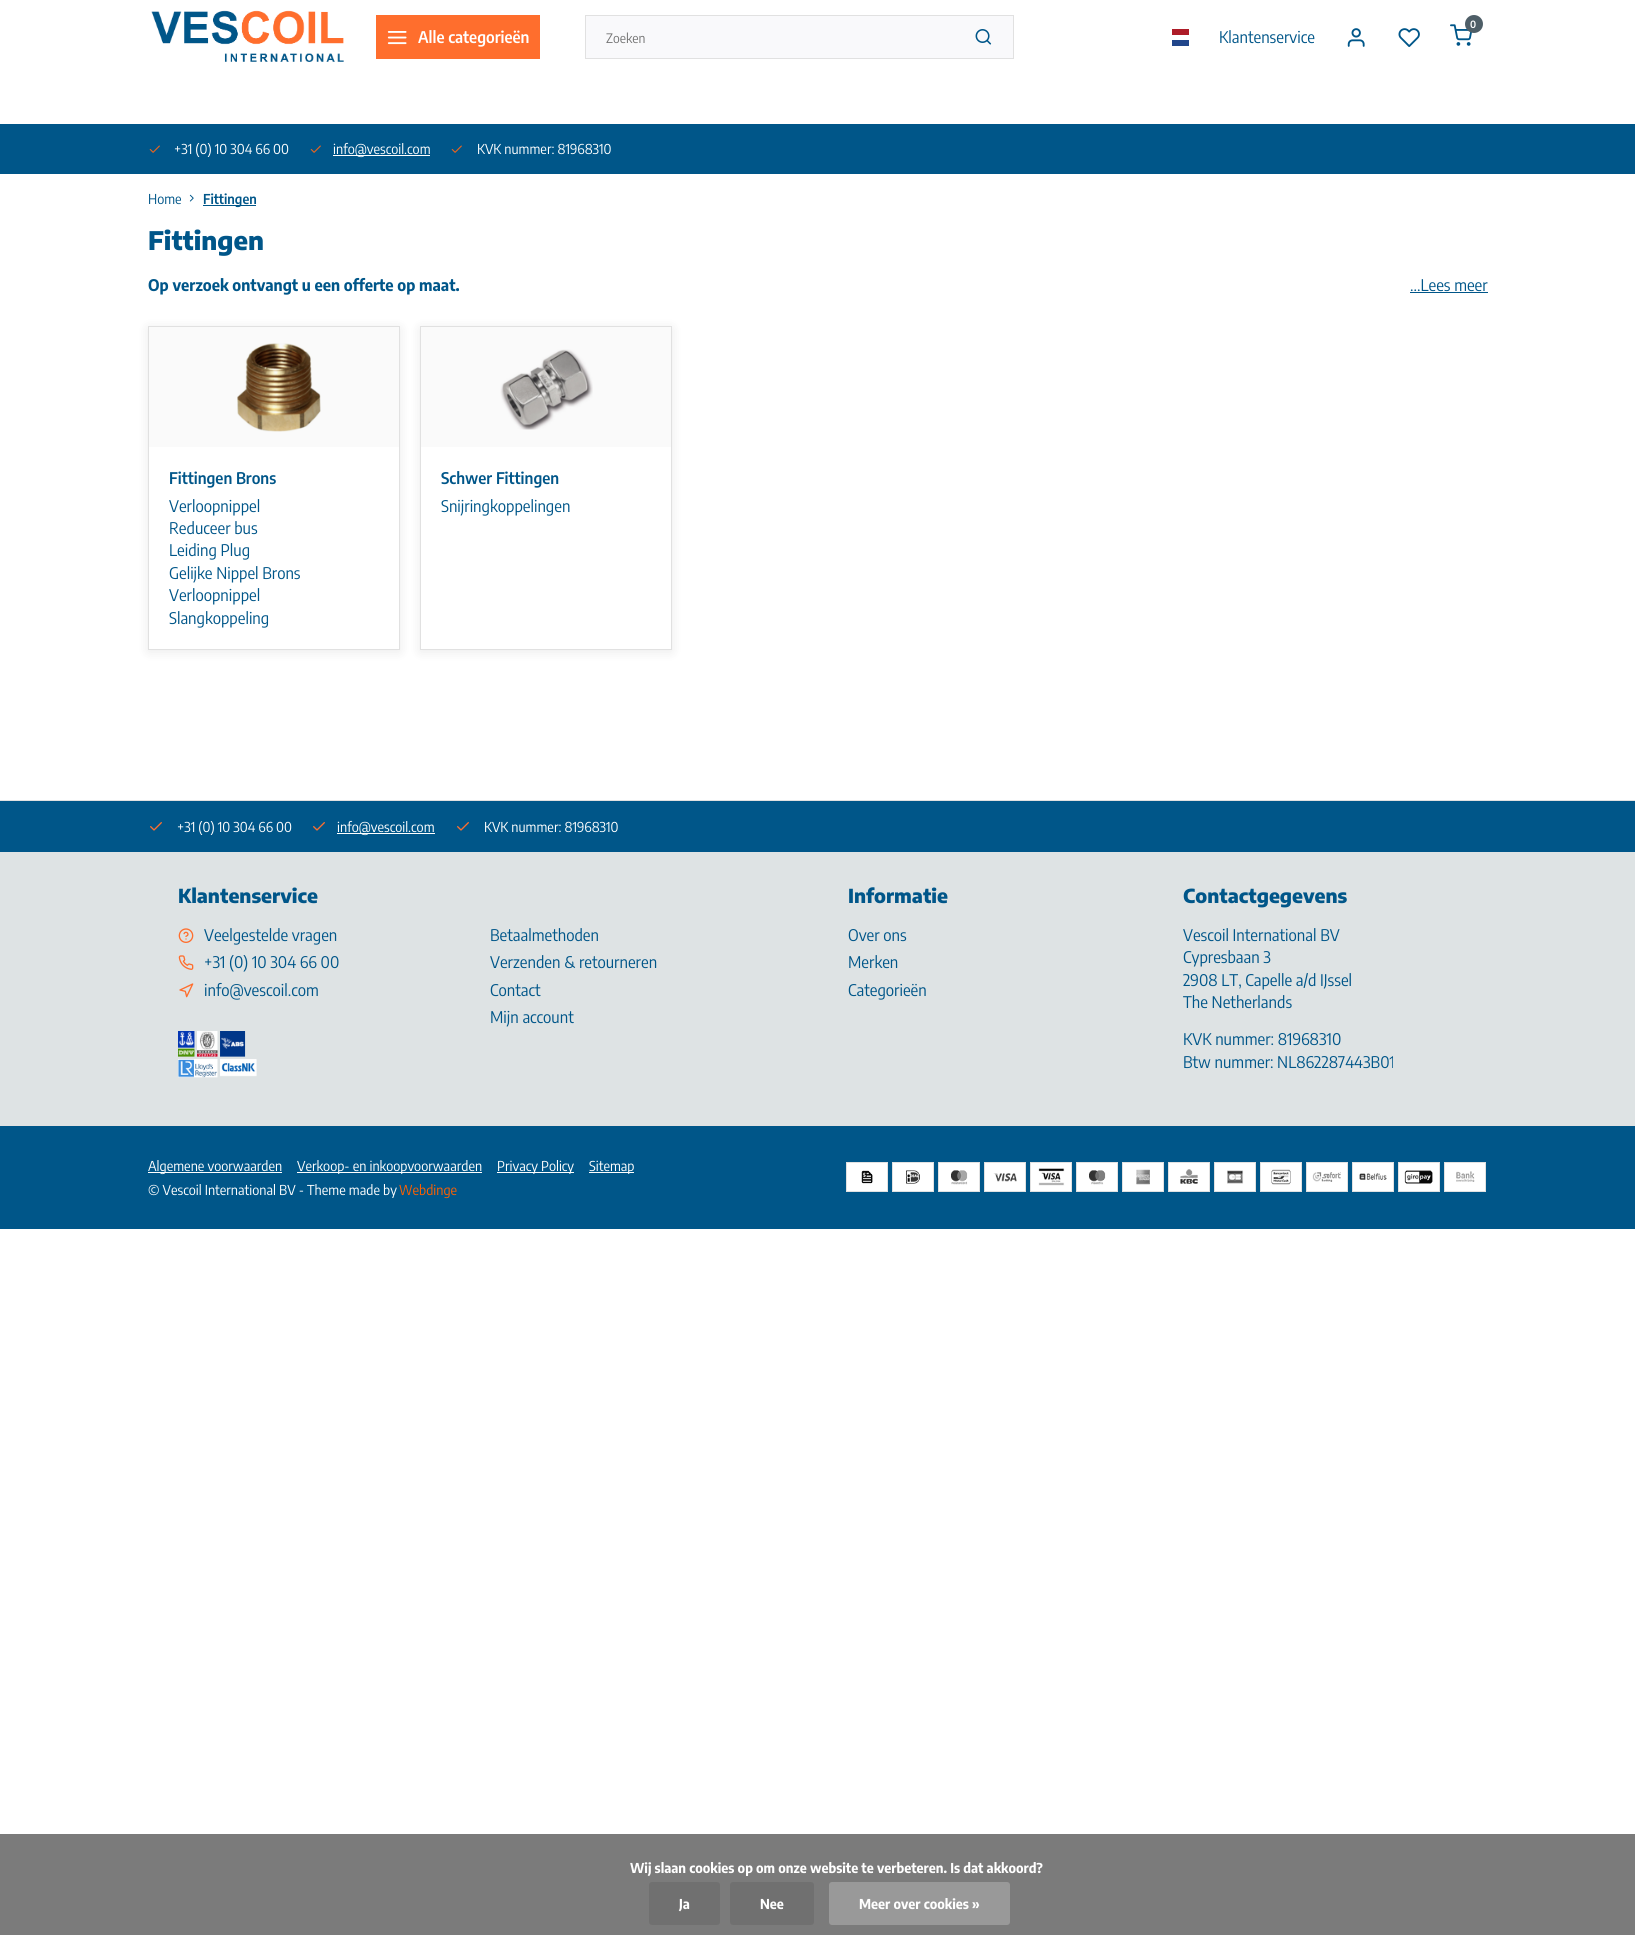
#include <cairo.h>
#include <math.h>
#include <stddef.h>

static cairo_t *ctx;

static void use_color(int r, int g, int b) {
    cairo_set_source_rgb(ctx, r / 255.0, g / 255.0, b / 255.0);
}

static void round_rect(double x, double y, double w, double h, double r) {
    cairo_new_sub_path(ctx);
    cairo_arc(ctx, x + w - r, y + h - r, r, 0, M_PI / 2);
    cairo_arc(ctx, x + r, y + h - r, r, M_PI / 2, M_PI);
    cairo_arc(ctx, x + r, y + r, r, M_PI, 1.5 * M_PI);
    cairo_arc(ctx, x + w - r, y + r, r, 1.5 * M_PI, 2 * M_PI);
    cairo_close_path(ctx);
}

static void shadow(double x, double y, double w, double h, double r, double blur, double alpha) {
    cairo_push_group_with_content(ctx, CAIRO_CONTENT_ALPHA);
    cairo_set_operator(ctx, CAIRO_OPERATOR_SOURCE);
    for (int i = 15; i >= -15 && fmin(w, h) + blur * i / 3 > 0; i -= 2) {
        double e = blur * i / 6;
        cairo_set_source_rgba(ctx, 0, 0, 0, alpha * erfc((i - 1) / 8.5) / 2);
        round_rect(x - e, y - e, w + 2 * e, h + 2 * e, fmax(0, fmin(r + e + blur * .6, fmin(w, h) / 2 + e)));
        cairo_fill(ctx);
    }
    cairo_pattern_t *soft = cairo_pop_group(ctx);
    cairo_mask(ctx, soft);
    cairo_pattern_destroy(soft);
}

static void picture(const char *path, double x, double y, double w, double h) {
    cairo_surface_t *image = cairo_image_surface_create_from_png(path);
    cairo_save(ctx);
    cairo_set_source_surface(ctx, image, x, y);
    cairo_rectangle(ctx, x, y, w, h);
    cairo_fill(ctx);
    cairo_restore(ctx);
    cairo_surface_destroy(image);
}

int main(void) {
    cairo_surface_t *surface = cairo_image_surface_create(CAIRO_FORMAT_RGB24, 1635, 1935);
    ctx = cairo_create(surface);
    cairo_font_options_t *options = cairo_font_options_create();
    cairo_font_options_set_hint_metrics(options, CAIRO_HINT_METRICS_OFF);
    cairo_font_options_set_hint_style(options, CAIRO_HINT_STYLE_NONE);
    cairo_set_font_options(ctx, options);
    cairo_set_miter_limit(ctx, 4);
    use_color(255, 255, 255);
    cairo_paint(ctx);
    use_color(250, 250, 250);
    cairo_rectangle(ctx, 421, 327, 250, 120);
    cairo_fill(ctx);
    cairo_rectangle(ctx, 149, 327, 250, 120);
    cairo_fill(ctx);
    picture("img1.png", 151, 10, 193, 52);
    use_color(255, 110, 45);
    cairo_rectangle(ctx, 376, 15, 164, 44);
    cairo_fill(ctx);
    picture("img2.png", 387, 31, 20, 14);
    cairo_select_font_face(ctx, "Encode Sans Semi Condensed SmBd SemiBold", CAIRO_FONT_SLANT_NORMAL, CAIRO_FONT_WEIGHT_NORMAL);
    cairo_set_font_size(ctx, 16);
    use_color(255, 255, 255);
    cairo_move_to(ctx, 418, 43);
    cairo_show_text(ctx, "Alle categorieën");
    use_color(249, 249, 251);
    cairo_rectangle(ctx, 585.5, 15.5, 428, 43);
    cairo_fill_preserve(ctx);
    use_color(225, 225, 225);
    cairo_set_line_width(ctx, 1);
    cairo_stroke(ctx);
    cairo_select_font_face(ctx, "Encode Sans Semi Condensed", CAIRO_FONT_SLANT_NORMAL, CAIRO_FONT_WEIGHT_NORMAL);
    cairo_set_font_size(ctx, 13);
    use_color(117, 117, 117);
    cairo_move_to(ctx, 606, 43);
    cairo_show_text(ctx, "Zoeken");
    picture("img3.png", 975, 29, 17, 16);
    picture("img4.png", 1450, 24, 22, 22);
    use_color(78, 94, 103);
    cairo_arc(ctx, 1474, 24, 9, 0, 2 * M_PI);
    cairo_fill(ctx);
    cairo_select_font_face(ctx, "Encode Sans Semi Condensed SmBd SemiBold", CAIRO_FONT_SLANT_NORMAL, CAIRO_FONT_WEIGHT_NORMAL);
    cairo_set_font_size(ctx, 10);
    use_color(255, 255, 255);
    cairo_move_to(ctx, 1470, 28);
    cairo_show_text(ctx, "0");
    use_color(33, 70, 139);
    cairo_rectangle(ctx, 1172, 40, 17, 6);
    cairo_fill(ctx);
    use_color(174, 28, 40);
    cairo_rectangle(ctx, 1172, 29, 17, 6);
    cairo_fill(ctx);
    cairo_select_font_face(ctx, "Encode Sans Semi Condensed", CAIRO_FONT_SLANT_NORMAL, CAIRO_FONT_WEIGHT_NORMAL);
    cairo_set_font_size(ctx, 16);
    use_color(0, 86, 137);
    cairo_move_to(ctx, 1219, 43);
    cairo_show_text(ctx, "Klantenservice");
    picture("img5.png", 1347, 28, 18, 19);
    picture("img6.png", 1398, 28, 22, 19);
    cairo_rectangle(ctx, 0, 124, 1635, 50);
    cairo_fill(ctx);
    picture("img7.png", 149, 145, 11, 8);
    cairo_set_font_size(ctx, 13.6);
    use_color(255, 255, 255);
    cairo_move_to(ctx, 174, 154);
    cairo_show_text(ctx, "+31 (0) 10 304 66 00");
    picture("img7.png", 310, 145, 11, 8);
    cairo_rectangle(ctx, 333, 155, 97, 1);
    cairo_fill(ctx);
    cairo_move_to(ctx, 333, 154);
    cairo_show_text(ctx, "info@vescoil.com");
    picture("img7.png", 451, 145, 11, 8);
    cairo_move_to(ctx, 477, 154);
    cairo_show_text(ctx, "KVK nummer: 81968310");
    use_color(0, 86, 137);
    cairo_move_to(ctx, 148, 204);
    cairo_show_text(ctx, "Home");
    picture("img8.png", 189, 194, 5, 8);
    cairo_rectangle(ctx, 203, 205, 53, 1);
    cairo_fill(ctx);
    cairo_select_font_face(ctx, "Encode Sans Semi Condensed SmBd SemiBold", CAIRO_FONT_SLANT_NORMAL, CAIRO_FONT_WEIGHT_NORMAL);
    cairo_move_to(ctx, 203, 204);
    cairo_show_text(ctx, "Fittingen");
    cairo_select_font_face(ctx, "Encode Sans Condensed Thin", CAIRO_FONT_SLANT_NORMAL, CAIRO_FONT_WEIGHT_NORMAL);
    cairo_set_font_size(ctx, 25.5);
    cairo_move_to(ctx, 148, 250);
    cairo_show_text(ctx, "Fittingen");
    cairo_select_font_face(ctx, "Encode Sans Semi Condensed", CAIRO_FONT_SLANT_NORMAL, CAIRO_FONT_WEIGHT_BOLD);
    cairo_set_font_size(ctx, 16);
    cairo_move_to(ctx, 148, 291);
    cairo_show_text(ctx, "Op verzoek ontvangt u een offerte op maat.");
    cairo_select_font_face(ctx, "Encode Sans Semi Condensed", CAIRO_FONT_SLANT_NORMAL, CAIRO_FONT_WEIGHT_NORMAL);
    cairo_move_to(ctx, 1410, 291);
    cairo_show_text(ctx, "...Lees meer");
    cairo_rectangle(ctx, 1410, 292, 78, 1);
    cairo_fill(ctx);
    cairo_save(ctx);
    cairo_set_fill_rule(ctx, CAIRO_FILL_RULE_EVEN_ODD);
    cairo_new_path(ctx);
    cairo_move_to(ctx, 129, 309);
    cairo_line_to(ctx, 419, 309);
    cairo_line_to(ctx, 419, 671);
    cairo_line_to(ctx, 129, 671);
    cairo_close_path(ctx);
    cairo_move_to(ctx, 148, 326);
    cairo_line_to(ctx, 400, 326);
    cairo_line_to(ctx, 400, 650);
    cairo_line_to(ctx, 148, 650);
    cairo_close_path(ctx);
    cairo_clip(ctx);
    use_color(0, 0, 0);
    shadow(148, 328, 252, 324, 0, 6, 0.08);
    cairo_restore(ctx);
    cairo_rectangle(ctx, 148.5, 326.5, 251, 323);
    use_color(225, 225, 225);
    cairo_stroke(ctx);
    picture("img9.png", 237, 343, 84, 89);
    cairo_select_font_face(ctx, "Encode Sans Semi Condensed SmBd SemiBold", CAIRO_FONT_SLANT_NORMAL, CAIRO_FONT_WEIGHT_NORMAL);
    use_color(0, 86, 137);
    cairo_move_to(ctx, 169, 484);
    cairo_show_text(ctx, "Fittingen Brons");
    cairo_select_font_face(ctx, "Encode Sans Semi Condensed", CAIRO_FONT_SLANT_NORMAL, CAIRO_FONT_WEIGHT_NORMAL);
    cairo_move_to(ctx, 169, 512);
    cairo_show_text(ctx, "Verloopnippel");
    cairo_move_to(ctx, 169, 534);
    cairo_show_text(ctx, "Reduceer bus");
    cairo_move_to(ctx, 169, 556);
    cairo_show_text(ctx, "Leiding Plug");
    cairo_move_to(ctx, 169, 579);
    cairo_show_text(ctx, "Gelijke Nippel Brons");
    cairo_move_to(ctx, 169, 601);
    cairo_show_text(ctx, "Verloopnippel");
    cairo_move_to(ctx, 169, 624);
    cairo_show_text(ctx, "Slangkoppeling");
    cairo_save(ctx);
    cairo_set_fill_rule(ctx, CAIRO_FILL_RULE_EVEN_ODD);
    cairo_new_path(ctx);
    cairo_move_to(ctx, 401, 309);
    cairo_line_to(ctx, 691, 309);
    cairo_line_to(ctx, 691, 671);
    cairo_line_to(ctx, 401, 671);
    cairo_close_path(ctx);
    cairo_move_to(ctx, 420, 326);
    cairo_line_to(ctx, 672, 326);
    cairo_line_to(ctx, 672, 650);
    cairo_line_to(ctx, 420, 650);
    cairo_close_path(ctx);
    cairo_clip(ctx);
    use_color(0, 0, 0);
    shadow(420, 328, 252, 324, 0, 6, 0.08);
    cairo_restore(ctx);
    cairo_rectangle(ctx, 420.5, 326.5, 251, 323);
    use_color(225, 225, 225);
    cairo_stroke(ctx);
    picture("img10.png", 500, 349, 93, 81);
    cairo_select_font_face(ctx, "Encode Sans Semi Condensed SmBd SemiBold", CAIRO_FONT_SLANT_NORMAL, CAIRO_FONT_WEIGHT_NORMAL);
    use_color(0, 86, 137);
    cairo_move_to(ctx, 441, 484);
    cairo_show_text(ctx, "Schwer Fittingen");
    cairo_select_font_face(ctx, "Encode Sans Semi Condensed", CAIRO_FONT_SLANT_NORMAL, CAIRO_FONT_WEIGHT_NORMAL);
    cairo_move_to(ctx, 441, 512);
    cairo_show_text(ctx, "Snijringkoppelingen");
    cairo_rectangle(ctx, 0, 801, 1635, 51);
    cairo_fill(ctx);
    use_color(225, 225, 225);
    cairo_rectangle(ctx, 0, 800, 1635, 1);
    cairo_fill(ctx);
    picture("img11.png", 150, 822, 12, 9);
    cairo_set_font_size(ctx, 13.6);
    use_color(255, 255, 255);
    cairo_move_to(ctx, 177, 832);
    cairo_show_text(ctx, "+31 (0) 10 304 66 00");
    picture("img11.png", 313, 822, 12, 9);
    cairo_rectangle(ctx, 337, 833, 98, 1);
    cairo_fill(ctx);
    cairo_move_to(ctx, 337, 832);
    cairo_show_text(ctx, "info@vescoil.com");
    picture("img11.png", 457, 822, 12, 9);
    cairo_move_to(ctx, 484, 832);
    cairo_show_text(ctx, "KVK nummer: 81968310");
    use_color(222, 227, 228);
    cairo_rectangle(ctx, 0, 852, 1635, 273);
    cairo_fill(ctx);
    cairo_select_font_face(ctx, "Encode Sans Condensed Thin", CAIRO_FONT_SLANT_NORMAL, CAIRO_FONT_WEIGHT_NORMAL);
    cairo_set_font_size(ctx, 19.25);
    use_color(0, 86, 137);
    cairo_move_to(ctx, 178, 903);
    cairo_show_text(ctx, "Klantenservice");
    picture("img12.png", 178, 928, 16, 15);
    cairo_select_font_face(ctx, "Encode Sans Semi Condensed", CAIRO_FONT_SLANT_NORMAL, CAIRO_FONT_WEIGHT_NORMAL);
    cairo_set_font_size(ctx, 16);
    cairo_move_to(ctx, 204, 941);
    cairo_show_text(ctx, "Veelgestelde vragen");
    picture("img13.png", 178, 955, 16, 15);
    cairo_move_to(ctx, 204, 968);
    cairo_show_text(ctx, "+31 (0) 10 304 66 00");
    picture("img14.png", 179, 983, 15, 15);
    cairo_move_to(ctx, 204, 996);
    cairo_show_text(ctx, "info@vescoil.com");
    picture("img15.png", 178, 1031, 79, 47);
    cairo_move_to(ctx, 490, 941);
    cairo_show_text(ctx, "Betaalmethoden");
    cairo_move_to(ctx, 490, 968);
    cairo_show_text(ctx, "Verzenden & retourneren");
    cairo_move_to(ctx, 490, 996);
    cairo_show_text(ctx, "Contact");
    cairo_move_to(ctx, 490, 1023);
    cairo_show_text(ctx, "Mijn account");
    cairo_select_font_face(ctx, "Encode Sans Condensed Thin", CAIRO_FONT_SLANT_NORMAL, CAIRO_FONT_WEIGHT_NORMAL);
    cairo_set_font_size(ctx, 19.25);
    cairo_move_to(ctx, 848, 903);
    cairo_show_text(ctx, "Informatie");
    cairo_select_font_face(ctx, "Encode Sans Semi Condensed", CAIRO_FONT_SLANT_NORMAL, CAIRO_FONT_WEIGHT_NORMAL);
    cairo_set_font_size(ctx, 16);
    cairo_move_to(ctx, 848, 941);
    cairo_show_text(ctx, "Over ons");
    cairo_move_to(ctx, 848, 968);
    cairo_show_text(ctx, "Merken");
    cairo_move_to(ctx, 848, 996);
    cairo_show_text(ctx, "Categorieën");
    cairo_select_font_face(ctx, "Encode Sans Condensed Thin", CAIRO_FONT_SLANT_NORMAL, CAIRO_FONT_WEIGHT_NORMAL);
    cairo_set_font_size(ctx, 19.25);
    cairo_move_to(ctx, 1183, 903);
    cairo_show_text(ctx, "Contactgegevens");
    cairo_select_font_face(ctx, "Encode Sans Semi Condensed", CAIRO_FONT_SLANT_NORMAL, CAIRO_FONT_WEIGHT_NORMAL);
    cairo_set_font_size(ctx, 16);
    cairo_move_to(ctx, 1183, 941);
    cairo_show_text(ctx, "Vescoil International BV");
    cairo_move_to(ctx, 1183, 963);
    cairo_show_text(ctx, "Cypresbaan 3");
    cairo_move_to(ctx, 1183, 986);
    cairo_show_text(ctx, "2908 LT, Capelle a/d IJssel");
    cairo_move_to(ctx, 1183, 1008);
    cairo_show_text(ctx, "The Netherlands");
    cairo_move_to(ctx, 1183, 1045);
    cairo_show_text(ctx, "KVK nummer: 81968310");
    cairo_move_to(ctx, 1183, 1068);
    cairo_show_text(ctx, "Btw nummer: NL862287443B01");
    cairo_rectangle(ctx, 0, 1126, 1635, 103);
    cairo_fill(ctx);
    use_color(225, 225, 225);
    cairo_rectangle(ctx, 0, 1125, 1635, 1);
    cairo_fill(ctx);
    use_color(255, 255, 255);
    cairo_rectangle(ctx, 148, 1172, 134, 1);
    cairo_fill(ctx);
    cairo_set_font_size(ctx, 13.6);
    cairo_move_to(ctx, 148, 1171);
    cairo_show_text(ctx, "Algemene voorwaarden");
    cairo_rectangle(ctx, 297, 1172, 185, 1);
    cairo_fill(ctx);
    cairo_move_to(ctx, 297, 1171);
    cairo_show_text(ctx, "Verkoop- en inkoopvoorwaarden");
    cairo_rectangle(ctx, 497, 1172, 77, 1);
    cairo_fill(ctx);
    cairo_move_to(ctx, 497, 1171);
    cairo_show_text(ctx, "Privacy Policy");
    cairo_rectangle(ctx, 589, 1172, 45, 1);
    cairo_fill(ctx);
    cairo_move_to(ctx, 589, 1171);
    cairo_show_text(ctx, "Sitemap");
    cairo_move_to(ctx, 148, 1195);
    cairo_show_text(ctx, "© Vescoil International BV - Theme made by");
    use_color(255, 96, 0);
    cairo_move_to(ctx, 399, 1195);
    cairo_show_text(ctx, "Webdinge");
    use_color(255, 255, 255);
    cairo_rectangle(ctx, 846.5, 1162.5, 41, 29);
    cairo_fill_preserve(ctx);
    use_color(225, 225, 225);
    cairo_stroke(ctx);
    picture("img16.png", 861, 1170, 12, 14);
    use_color(255, 255, 255);
    cairo_rectangle(ctx, 892.5, 1162.5, 41, 29);
    cairo_fill_preserve(ctx);
    use_color(225, 225, 225);
    cairo_stroke(ctx);
    picture("img17.png", 906, 1170, 14, 14);
    use_color(255, 255, 255);
    cairo_rectangle(ctx, 938.5, 1162.5, 41, 29);
    cairo_fill_preserve(ctx);
    use_color(225, 225, 225);
    cairo_stroke(ctx);
    picture("img18.png", 951, 1170, 17, 15);
    use_color(255, 255, 255);
    cairo_rectangle(ctx, 984.5, 1162.5, 41, 29);
    cairo_fill_preserve(ctx);
    use_color(225, 225, 225);
    cairo_stroke(ctx);
    picture("img19.png", 993, 1173, 24, 9);
    use_color(255, 255, 255);
    cairo_rectangle(ctx, 1030.5, 1162.5, 41, 29);
    cairo_fill_preserve(ctx);
    use_color(225, 225, 225);
    cairo_stroke(ctx);
    picture("img20.png", 1038, 1168, 27, 18);
    use_color(255, 255, 255);
    cairo_rectangle(ctx, 1076.5, 1162.5, 41, 29);
    cairo_fill_preserve(ctx);
    use_color(225, 225, 225);
    cairo_stroke(ctx);
    picture("img21.png", 1089, 1170, 17, 15);
    use_color(255, 255, 255);
    cairo_rectangle(ctx, 1122.5, 1162.5, 41, 29);
    cairo_fill_preserve(ctx);
    use_color(225, 225, 225);
    cairo_stroke(ctx);
    picture("img22.png", 1136, 1169, 14, 16);
    use_color(255, 255, 255);
    cairo_rectangle(ctx, 1168.5, 1162.5, 41, 29);
    cairo_fill_preserve(ctx);
    use_color(225, 225, 225);
    cairo_stroke(ctx);
    picture("img23.png", 1180, 1169, 18, 15);
    use_color(255, 255, 255);
    cairo_rectangle(ctx, 1214.5, 1162.5, 41, 29);
    cairo_fill_preserve(ctx);
    use_color(225, 225, 225);
    cairo_stroke(ctx);
    picture("img24.png", 1227, 1170, 17, 14);
    use_color(255, 255, 255);
    cairo_rectangle(ctx, 1260.5, 1162.5, 41, 29);
    cairo_fill_preserve(ctx);
    use_color(225, 225, 225);
    cairo_stroke(ctx);
    picture("img25.png", 1271, 1169, 20, 16);
    use_color(255, 255, 255);
    cairo_rectangle(ctx, 1306.5, 1162.5, 41, 29);
    cairo_fill_preserve(ctx);
    use_color(225, 225, 225);
    cairo_stroke(ctx);
    picture("img26.png", 1312, 1172, 29, 10);
    use_color(255, 255, 255);
    cairo_rectangle(ctx, 1352.5, 1162.5, 41, 29);
    cairo_fill_preserve(ctx);
    use_color(225, 225, 225);
    cairo_stroke(ctx);
    picture("img27.png", 1359, 1173, 28, 7);
    use_color(255, 255, 255);
    cairo_rectangle(ctx, 1398.5, 1162.5, 41, 29);
    cairo_fill_preserve(ctx);
    use_color(225, 225, 225);
    cairo_stroke(ctx);
    picture("img28.png", 1404, 1170, 29, 14);
    use_color(255, 255, 255);
    cairo_rectangle(ctx, 1444.5, 1162.5, 41, 29);
    cairo_fill_preserve(ctx);
    use_color(225, 225, 225);
    cairo_stroke(ctx);
    picture("img29.png", 1456, 1171, 19, 11);
    use_color(123, 123, 123);
    cairo_rectangle(ctx, 0, 1834, 1635, 101);
    cairo_fill(ctx);
    cairo_select_font_face(ctx, "Encode Sans Semi Condensed", CAIRO_FONT_SLANT_NORMAL, CAIRO_FONT_WEIGHT_BOLD);
    use_color(255, 255, 255);
    cairo_move_to(ctx, 630, 1873);
    cairo_show_text(ctx, "Wij slaan cookies op om onze website te verbeteren. Is dat akkoord?");
    use_color(112, 112, 112);
    round_rect(649, 1882, 71, 43, 3);
    cairo_fill(ctx);
    use_color(255, 255, 255);
    cairo_move_to(ctx, 679, 1909);
    cairo_show_text(ctx, "Ja");
    use_color(112, 112, 112);
    round_rect(730, 1882, 84, 43, 3);
    cairo_fill(ctx);
    use_color(255, 255, 255);
    cairo_move_to(ctx, 760, 1909);
    cairo_show_text(ctx, "Nee");
    use_color(153, 153, 153);
    round_rect(829, 1882, 181, 43, 3);
    cairo_fill(ctx);
    use_color(255, 255, 255);
    cairo_move_to(ctx, 859, 1909);
    cairo_show_text(ctx, "Meer over cookies »");
    cairo_surface_write_to_png(surface, "result.png");
    cairo_font_options_destroy(options);
    cairo_destroy(ctx);
    cairo_surface_destroy(surface);
    return 0;
}
